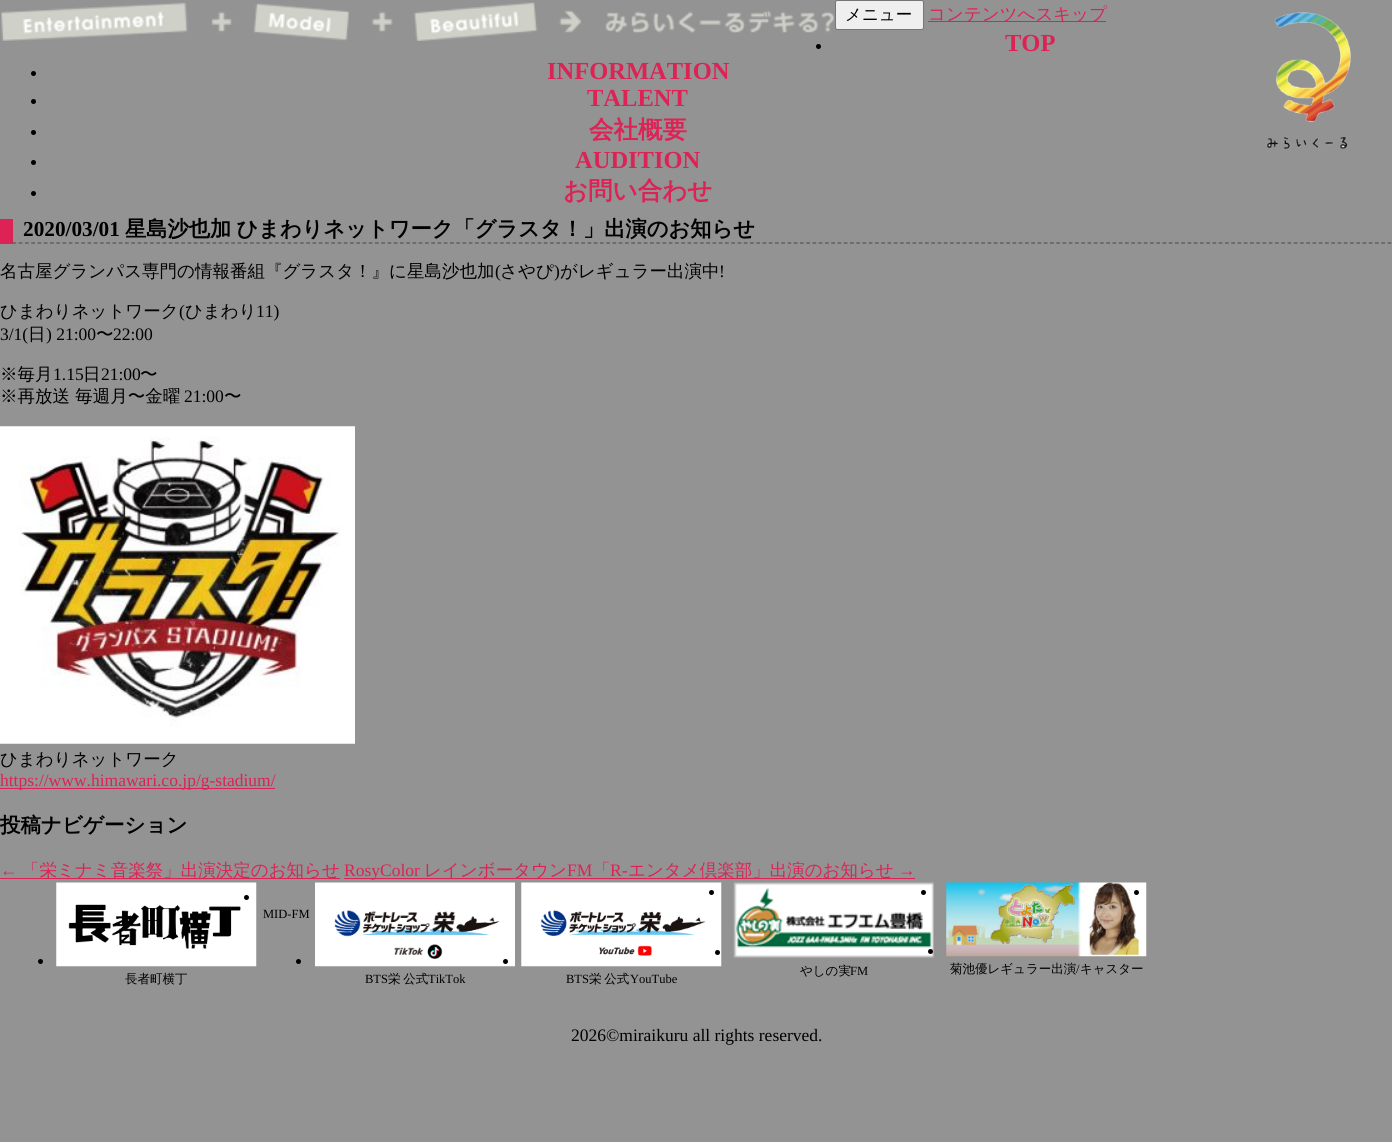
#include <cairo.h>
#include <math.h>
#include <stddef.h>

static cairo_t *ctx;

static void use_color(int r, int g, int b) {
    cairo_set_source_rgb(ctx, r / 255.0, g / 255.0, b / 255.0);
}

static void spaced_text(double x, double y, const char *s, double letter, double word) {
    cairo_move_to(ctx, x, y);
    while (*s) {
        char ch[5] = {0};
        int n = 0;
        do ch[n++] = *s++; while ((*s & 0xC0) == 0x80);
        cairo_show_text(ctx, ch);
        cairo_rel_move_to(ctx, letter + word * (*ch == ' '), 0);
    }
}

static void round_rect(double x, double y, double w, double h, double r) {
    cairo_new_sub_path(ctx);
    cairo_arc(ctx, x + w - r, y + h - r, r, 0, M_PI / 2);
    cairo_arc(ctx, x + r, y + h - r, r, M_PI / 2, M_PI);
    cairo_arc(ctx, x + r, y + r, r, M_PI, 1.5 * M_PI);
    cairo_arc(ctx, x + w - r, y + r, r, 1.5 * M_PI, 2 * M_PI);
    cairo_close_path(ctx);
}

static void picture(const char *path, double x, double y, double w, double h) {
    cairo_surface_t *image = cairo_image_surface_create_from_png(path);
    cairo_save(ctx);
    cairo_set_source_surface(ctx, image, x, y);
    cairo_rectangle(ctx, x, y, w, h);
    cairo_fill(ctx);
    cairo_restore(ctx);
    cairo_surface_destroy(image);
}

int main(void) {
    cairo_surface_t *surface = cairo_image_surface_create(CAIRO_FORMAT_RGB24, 1392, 1142);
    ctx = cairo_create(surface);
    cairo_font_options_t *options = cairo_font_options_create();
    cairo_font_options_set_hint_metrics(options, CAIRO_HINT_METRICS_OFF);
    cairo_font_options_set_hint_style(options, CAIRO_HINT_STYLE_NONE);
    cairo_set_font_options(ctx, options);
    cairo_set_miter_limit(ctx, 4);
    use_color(147, 147, 147);
    cairo_paint(ctx);
    picture("img1.png", 1, 2, 833, 39);
    picture("img2.png", 1266, 12, 85, 137);
    use_color(239, 239, 239);
    round_rect(835.5, 0.5, 88, 29, 2);
    cairo_fill_preserve(ctx);
    use_color(118, 118, 118);
    cairo_set_line_width(ctx, 1);
    cairo_stroke(ctx);
    cairo_select_font_face(ctx, "WenQuanYi Zen Hei Medium", CAIRO_FONT_SLANT_NORMAL, CAIRO_FONT_WEIGHT_NORMAL);
    cairo_set_font_size(ctx, 16.5);
    use_color(0, 0, 0);
    cairo_move_to(ctx, 845, 20);
    cairo_show_text(ctx, "メニュー");
    use_color(221, 34, 85);
    cairo_rectangle(ctx, 928, 21, 178, 1);
    cairo_fill(ctx);
    cairo_set_font_size(ctx, 17.5);
    cairo_move_to(ctx, 928, 20);
    cairo_show_text(ctx, "コンテンツへスキップ");
    use_color(0, 0, 0);
    cairo_new_path(ctx);
    cairo_arc(ctx, 818.5, 46.5, 2.5, 0, 2 * M_PI);
    cairo_fill(ctx);
    cairo_select_font_face(ctx, "Liberation Serif", CAIRO_FONT_SLANT_NORMAL, CAIRO_FONT_WEIGHT_BOLD);
    cairo_set_font_size(ctx, 24.5);
    use_color(221, 34, 85);
    cairo_move_to(ctx, 1005, 51);
    cairo_show_text(ctx, "TOP");
    use_color(0, 0, 0);
    cairo_new_path(ctx);
    cairo_arc(ctx, 33.5, 73.5, 2.5, 0, 2 * M_PI);
    cairo_fill(ctx);
    use_color(221, 34, 85);
    cairo_move_to(ctx, 547, 79);
    cairo_show_text(ctx, "INFORMATION");
    use_color(0, 0, 0);
    cairo_new_path(ctx);
    cairo_arc(ctx, 33.5, 101.5, 2.5, 0, 2 * M_PI);
    cairo_fill(ctx);
    use_color(221, 34, 85);
    cairo_move_to(ctx, 587, 106);
    cairo_show_text(ctx, "TALENT");
    use_color(0, 0, 0);
    cairo_new_path(ctx);
    cairo_arc(ctx, 33.5, 132.5, 2.5, 0, 2 * M_PI);
    cairo_fill(ctx);
    cairo_select_font_face(ctx, "WenQuanYi Zen Hei", CAIRO_FONT_SLANT_NORMAL, CAIRO_FONT_WEIGHT_BOLD);
    use_color(221, 34, 85);
    cairo_move_to(ctx, 589, 138);
    cairo_show_text(ctx, "会社概要");
    use_color(0, 0, 0);
    cairo_new_path(ctx);
    cairo_arc(ctx, 33.5, 162.5, 2.5, 0, 2 * M_PI);
    cairo_fill(ctx);
    cairo_select_font_face(ctx, "Liberation Serif", CAIRO_FONT_SLANT_NORMAL, CAIRO_FONT_WEIGHT_BOLD);
    use_color(221, 34, 85);
    cairo_move_to(ctx, 575, 168);
    cairo_show_text(ctx, "AUDITION");
    use_color(0, 0, 0);
    cairo_new_path(ctx);
    cairo_arc(ctx, 33.5, 193.5, 2.5, 0, 2 * M_PI);
    cairo_fill(ctx);
    cairo_select_font_face(ctx, "WenQuanYi Zen Hei", CAIRO_FONT_SLANT_NORMAL, CAIRO_FONT_WEIGHT_BOLD);
    use_color(221, 34, 85);
    cairo_move_to(ctx, 563, 199);
    cairo_show_text(ctx, "お問い合わせ");
    cairo_rectangle(ctx, 0, 219, 13, 25);
    cairo_fill(ctx);
    cairo_select_font_face(ctx, "Liberation Serif", CAIRO_FONT_SLANT_NORMAL, CAIRO_FONT_WEIGHT_BOLD);
    cairo_set_font_size(ctx, 21.25);
    use_color(0, 0, 0);
    cairo_move_to(ctx, 23, 236);
    cairo_show_text(ctx, "2020/03/01");
    cairo_select_font_face(ctx, "WenQuanYi Zen Hei", CAIRO_FONT_SLANT_NORMAL, CAIRO_FONT_WEIGHT_BOLD);
    spaced_text(125, 236, "星島沙也加 ひまわりネットワーク「グラスタ！」出演のお知らせ", 0, -1);
    cairo_new_path(ctx);
    cairo_move_to(ctx, 12.5, 243);
    cairo_line_to(ctx, 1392.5, 243);
    use_color(85, 85, 85);
    cairo_set_line_width(ctx, 1.2);
    cairo_set_dash(ctx, (double[]){3.75, 2.5}, 2, 0);
    cairo_stroke(ctx);
    cairo_select_font_face(ctx, "WenQuanYi Zen Hei Medium", CAIRO_FONT_SLANT_NORMAL, CAIRO_FONT_WEIGHT_NORMAL);
    cairo_set_font_size(ctx, 17.5);
    use_color(0, 0, 0);
    cairo_move_to(ctx, 0, 277);
    cairo_show_text(ctx, "名古屋グランパス専門の情報番組『グラスタ！』に星島沙也加");
    cairo_select_font_face(ctx, "Liberation Serif", CAIRO_FONT_SLANT_NORMAL, CAIRO_FONT_WEIGHT_NORMAL);
    cairo_move_to(ctx, 495, 277);
    cairo_show_text(ctx, "(");
    cairo_select_font_face(ctx, "WenQuanYi Zen Hei Medium", CAIRO_FONT_SLANT_NORMAL, CAIRO_FONT_WEIGHT_NORMAL);
    cairo_move_to(ctx, 500, 277);
    cairo_show_text(ctx, "さやぴ");
    cairo_select_font_face(ctx, "Liberation Serif", CAIRO_FONT_SLANT_NORMAL, CAIRO_FONT_WEIGHT_NORMAL);
    cairo_move_to(ctx, 554, 277);
    cairo_show_text(ctx, ")");
    cairo_select_font_face(ctx, "WenQuanYi Zen Hei Medium", CAIRO_FONT_SLANT_NORMAL, CAIRO_FONT_WEIGHT_NORMAL);
    cairo_move_to(ctx, 560, 277);
    cairo_show_text(ctx, "がレギュラー出演中");
    cairo_select_font_face(ctx, "Liberation Serif", CAIRO_FONT_SLANT_NORMAL, CAIRO_FONT_WEIGHT_NORMAL);
    cairo_move_to(ctx, 719, 277);
    cairo_show_text(ctx, "!");
    cairo_select_font_face(ctx, "WenQuanYi Zen Hei Medium", CAIRO_FONT_SLANT_NORMAL, CAIRO_FONT_WEIGHT_NORMAL);
    cairo_move_to(ctx, 0, 317);
    cairo_show_text(ctx, "ひまわりネットワーク");
    cairo_select_font_face(ctx, "Liberation Serif", CAIRO_FONT_SLANT_NORMAL, CAIRO_FONT_WEIGHT_NORMAL);
    cairo_move_to(ctx, 179, 317);
    cairo_show_text(ctx, "(");
    cairo_select_font_face(ctx, "WenQuanYi Zen Hei Medium", CAIRO_FONT_SLANT_NORMAL, CAIRO_FONT_WEIGHT_NORMAL);
    cairo_move_to(ctx, 185, 317);
    cairo_show_text(ctx, "ひまわり");
    cairo_select_font_face(ctx, "Liberation Serif", CAIRO_FONT_SLANT_NORMAL, CAIRO_FONT_WEIGHT_NORMAL);
    cairo_move_to(ctx, 256, 317);
    cairo_show_text(ctx, "11)");
    cairo_move_to(ctx, 0, 340);
    cairo_show_text(ctx, "3/1(");
    cairo_select_font_face(ctx, "WenQuanYi Zen Hei Medium", CAIRO_FONT_SLANT_NORMAL, CAIRO_FONT_WEIGHT_NORMAL);
    cairo_move_to(ctx, 28, 340);
    cairo_show_text(ctx, "日");
    cairo_select_font_face(ctx, "Liberation Serif", CAIRO_FONT_SLANT_NORMAL, CAIRO_FONT_WEIGHT_NORMAL);
    cairo_move_to(ctx, 46, 340);
    cairo_show_text(ctx, ") 21:00");
    cairo_select_font_face(ctx, "WenQuanYi Zen Hei Medium", CAIRO_FONT_SLANT_NORMAL, CAIRO_FONT_WEIGHT_NORMAL);
    cairo_move_to(ctx, 96, 340);
    cairo_show_text(ctx, "〜");
    cairo_select_font_face(ctx, "Liberation Serif", CAIRO_FONT_SLANT_NORMAL, CAIRO_FONT_WEIGHT_NORMAL);
    cairo_move_to(ctx, 113, 340);
    cairo_show_text(ctx, "22:00");
    cairo_select_font_face(ctx, "WenQuanYi Zen Hei Medium", CAIRO_FONT_SLANT_NORMAL, CAIRO_FONT_WEIGHT_NORMAL);
    cairo_move_to(ctx, 0, 380);
    cairo_show_text(ctx, "※毎月");
    cairo_select_font_face(ctx, "Liberation Serif", CAIRO_FONT_SLANT_NORMAL, CAIRO_FONT_WEIGHT_NORMAL);
    cairo_move_to(ctx, 53, 380);
    cairo_show_text(ctx, "1.15");
    cairo_select_font_face(ctx, "WenQuanYi Zen Hei Medium", CAIRO_FONT_SLANT_NORMAL, CAIRO_FONT_WEIGHT_NORMAL);
    cairo_move_to(ctx, 83, 380);
    cairo_show_text(ctx, "日");
    cairo_select_font_face(ctx, "Liberation Serif", CAIRO_FONT_SLANT_NORMAL, CAIRO_FONT_WEIGHT_NORMAL);
    cairo_move_to(ctx, 101, 380);
    cairo_show_text(ctx, "21:00");
    cairo_select_font_face(ctx, "WenQuanYi Zen Hei Medium", CAIRO_FONT_SLANT_NORMAL, CAIRO_FONT_WEIGHT_NORMAL);
    cairo_move_to(ctx, 140, 380);
    cairo_show_text(ctx, "〜");
    cairo_move_to(ctx, 0, 402);
    cairo_show_text(ctx, "※再放送 毎週月〜金曜");
    cairo_select_font_face(ctx, "Liberation Serif", CAIRO_FONT_SLANT_NORMAL, CAIRO_FONT_WEIGHT_NORMAL);
    cairo_move_to(ctx, 184, 402);
    cairo_show_text(ctx, "21:00");
    cairo_select_font_face(ctx, "WenQuanYi Zen Hei Medium", CAIRO_FONT_SLANT_NORMAL, CAIRO_FONT_WEIGHT_NORMAL);
    cairo_move_to(ctx, 224, 402);
    cairo_show_text(ctx, "〜");
    picture("img3.png", 0, 426, 355, 318);
    cairo_move_to(ctx, 0, 765);
    cairo_show_text(ctx, "ひまわりネットワーク");
    use_color(221, 34, 85);
    cairo_rectangle(ctx, 0, 788, 275, 1);
    cairo_fill(ctx);
    cairo_select_font_face(ctx, "Liberation Serif", CAIRO_FONT_SLANT_NORMAL, CAIRO_FONT_WEIGHT_NORMAL);
    cairo_move_to(ctx, 0, 786);
    cairo_show_text(ctx, "https://www.himawari.co.jp/g-stadium/");
    cairo_select_font_face(ctx, "WenQuanYi Zen Hei", CAIRO_FONT_SLANT_NORMAL, CAIRO_FONT_WEIGHT_BOLD);
    cairo_set_font_size(ctx, 20.5);
    use_color(0, 0, 0);
    cairo_move_to(ctx, 0, 832);
    cairo_show_text(ctx, "投稿ナビゲーション");
    cairo_select_font_face(ctx, "Liberation Serif", CAIRO_FONT_SLANT_NORMAL, CAIRO_FONT_WEIGHT_NORMAL);
    cairo_set_font_size(ctx, 17.5);
    use_color(221, 34, 85);
    cairo_move_to(ctx, 0, 876);
    cairo_show_text(ctx, "←");
    cairo_rectangle(ctx, 0, 878, 340, 1);
    cairo_fill(ctx);
    cairo_select_font_face(ctx, "WenQuanYi Zen Hei Medium", CAIRO_FONT_SLANT_NORMAL, CAIRO_FONT_WEIGHT_NORMAL);
    cairo_move_to(ctx, 22, 876);
    cairo_show_text(ctx, "「栄ミナミ音楽祭」出演決定のお知らせ");
    cairo_rectangle(ctx, 344, 878, 571, 1);
    cairo_fill(ctx);
    cairo_select_font_face(ctx, "Liberation Serif", CAIRO_FONT_SLANT_NORMAL, CAIRO_FONT_WEIGHT_NORMAL);
    cairo_move_to(ctx, 344, 876);
    cairo_show_text(ctx, "RosyColor");
    cairo_select_font_face(ctx, "WenQuanYi Zen Hei Medium", CAIRO_FONT_SLANT_NORMAL, CAIRO_FONT_WEIGHT_NORMAL);
    cairo_move_to(ctx, 424, 876);
    cairo_show_text(ctx, "レインボータウン");
    cairo_select_font_face(ctx, "Liberation Serif", CAIRO_FONT_SLANT_NORMAL, CAIRO_FONT_WEIGHT_NORMAL);
    cairo_move_to(ctx, 567, 876);
    cairo_show_text(ctx, "FM");
    cairo_select_font_face(ctx, "WenQuanYi Zen Hei Medium", CAIRO_FONT_SLANT_NORMAL, CAIRO_FONT_WEIGHT_NORMAL);
    cairo_move_to(ctx, 593, 876);
    cairo_show_text(ctx, "「");
    cairo_select_font_face(ctx, "Liberation Serif", CAIRO_FONT_SLANT_NORMAL, CAIRO_FONT_WEIGHT_NORMAL);
    cairo_move_to(ctx, 610, 876);
    cairo_show_text(ctx, "R-");
    cairo_select_font_face(ctx, "WenQuanYi Zen Hei Medium", CAIRO_FONT_SLANT_NORMAL, CAIRO_FONT_WEIGHT_NORMAL);
    cairo_move_to(ctx, 628, 876);
    cairo_show_text(ctx, "エンタメ倶楽部」出演のお知らせ");
    cairo_select_font_face(ctx, "Liberation Serif", CAIRO_FONT_SLANT_NORMAL, CAIRO_FONT_WEIGHT_NORMAL);
    cairo_move_to(ctx, 898, 876);
    cairo_show_text(ctx, "→");
    picture("img8.png", 521, 882, 201, 85);
    use_color(0, 0, 0);
    cairo_arc(ctx, 711.5, 892.5, 2.5, 0, 2 * M_PI);
    cairo_fill(ctx);
    picture("img4.png", 733, 882, 201, 76);
    cairo_arc(ctx, 923.5, 892.5, 2.5, 0, 2 * M_PI);
    cairo_fill(ctx);
    picture("img5.png", 946, 882, 201, 75);
    cairo_arc(ctx, 1136.5, 892.5, 2.5, 0, 2 * M_PI);
    cairo_fill(ctx);
    picture("img6.png", 56, 882, 201, 85);
    cairo_arc(ctx, 246.5, 897.5, 2.5, 0, 2 * M_PI);
    cairo_fill(ctx);
    cairo_set_font_size(ctx, 12.5);
    cairo_move_to(ctx, 263, 918);
    cairo_show_text(ctx, "MID-FM");
    cairo_new_path(ctx);
    cairo_arc(ctx, 717.5, 952.5, 2.5, 0, 2 * M_PI);
    cairo_fill(ctx);
    cairo_select_font_face(ctx, "WenQuanYi Zen Hei Medium", CAIRO_FONT_SLANT_NORMAL, CAIRO_FONT_WEIGHT_NORMAL);
    cairo_move_to(ctx, 800, 975);
    cairo_show_text(ctx, "やしの実");
    cairo_select_font_face(ctx, "Liberation Serif", CAIRO_FONT_SLANT_NORMAL, CAIRO_FONT_WEIGHT_NORMAL);
    cairo_move_to(ctx, 850, 975);
    cairo_show_text(ctx, "FM");
    cairo_new_path(ctx);
    cairo_arc(ctx, 930.5, 951.5, 2.5, 0, 2 * M_PI);
    cairo_fill(ctx);
    cairo_select_font_face(ctx, "WenQuanYi Zen Hei Medium", CAIRO_FONT_SLANT_NORMAL, CAIRO_FONT_WEIGHT_NORMAL);
    cairo_move_to(ctx, 950, 973);
    cairo_show_text(ctx, "菊池優レギュラー出演 キャスター");
    cairo_select_font_face(ctx, "Liberation Serif", CAIRO_FONT_SLANT_NORMAL, CAIRO_FONT_WEIGHT_NORMAL);
    cairo_move_to(ctx, 1076, 973);
    cairo_show_text(ctx, "/");
    cairo_new_path(ctx);
    cairo_arc(ctx, 40.5, 961.5, 2.5, 0, 2 * M_PI);
    cairo_fill(ctx);
    cairo_select_font_face(ctx, "WenQuanYi Zen Hei Medium", CAIRO_FONT_SLANT_NORMAL, CAIRO_FONT_WEIGHT_NORMAL);
    cairo_move_to(ctx, 125, 983);
    cairo_show_text(ctx, "長者町横丁");
    cairo_new_path(ctx);
    cairo_arc(ctx, 298.5, 961.5, 2.5, 0, 2 * M_PI);
    cairo_fill(ctx);
    picture("img7.png", 315, 882, 200, 85);
    cairo_select_font_face(ctx, "Liberation Serif", CAIRO_FONT_SLANT_NORMAL, CAIRO_FONT_WEIGHT_NORMAL);
    cairo_move_to(ctx, 365, 983);
    cairo_show_text(ctx, "BTS");
    cairo_select_font_face(ctx, "WenQuanYi Zen Hei Medium", CAIRO_FONT_SLANT_NORMAL, CAIRO_FONT_WEIGHT_NORMAL);
    spaced_text(388, 983, "栄 公式", 0, -1);
    cairo_select_font_face(ctx, "Liberation Serif", CAIRO_FONT_SLANT_NORMAL, CAIRO_FONT_WEIGHT_NORMAL);
    cairo_move_to(ctx, 428, 983);
    cairo_show_text(ctx, "TikTok");
    cairo_new_path(ctx);
    cairo_arc(ctx, 505.5, 961.5, 2.5, 0, 2 * M_PI);
    cairo_fill(ctx);
    cairo_move_to(ctx, 566, 983);
    cairo_show_text(ctx, "BTS");
    cairo_select_font_face(ctx, "WenQuanYi Zen Hei Medium", CAIRO_FONT_SLANT_NORMAL, CAIRO_FONT_WEIGHT_NORMAL);
    spaced_text(589, 983, "栄 公式", 0, -1);
    cairo_select_font_face(ctx, "Liberation Serif", CAIRO_FONT_SLANT_NORMAL, CAIRO_FONT_WEIGHT_NORMAL);
    cairo_move_to(ctx, 630, 983);
    cairo_show_text(ctx, "YouTube");
    cairo_set_font_size(ctx, 17.5);
    cairo_move_to(ctx, 571, 1041);
    cairo_show_text(ctx, "2026©miraikuru all rights reserved.");
    cairo_surface_write_to_png(surface, "result.png");
    cairo_font_options_destroy(options);
    cairo_destroy(ctx);
    cairo_surface_destroy(surface);
    return 0;
}
